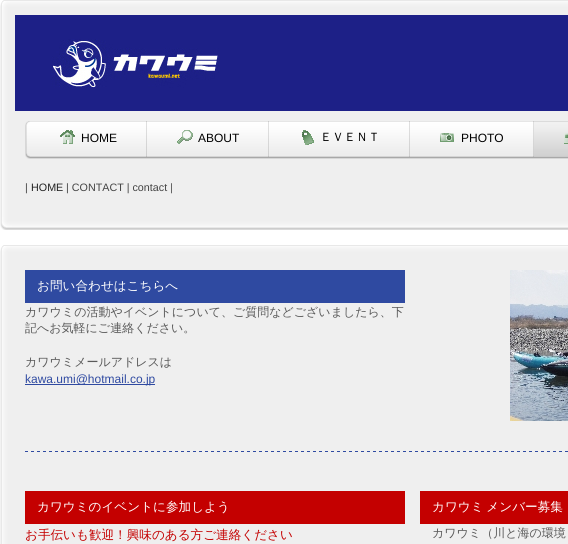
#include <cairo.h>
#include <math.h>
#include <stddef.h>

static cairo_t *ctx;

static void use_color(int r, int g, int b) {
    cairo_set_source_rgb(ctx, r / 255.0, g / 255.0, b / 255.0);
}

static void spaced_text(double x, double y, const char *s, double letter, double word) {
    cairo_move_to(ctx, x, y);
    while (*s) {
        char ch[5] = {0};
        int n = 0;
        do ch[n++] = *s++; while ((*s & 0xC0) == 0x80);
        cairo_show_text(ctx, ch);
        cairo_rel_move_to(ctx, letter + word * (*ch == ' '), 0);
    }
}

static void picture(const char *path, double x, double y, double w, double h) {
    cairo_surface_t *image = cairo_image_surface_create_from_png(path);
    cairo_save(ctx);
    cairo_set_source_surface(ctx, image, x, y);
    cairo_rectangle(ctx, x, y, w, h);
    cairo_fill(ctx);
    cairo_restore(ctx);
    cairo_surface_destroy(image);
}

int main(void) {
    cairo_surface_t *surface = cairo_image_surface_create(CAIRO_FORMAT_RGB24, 568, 544);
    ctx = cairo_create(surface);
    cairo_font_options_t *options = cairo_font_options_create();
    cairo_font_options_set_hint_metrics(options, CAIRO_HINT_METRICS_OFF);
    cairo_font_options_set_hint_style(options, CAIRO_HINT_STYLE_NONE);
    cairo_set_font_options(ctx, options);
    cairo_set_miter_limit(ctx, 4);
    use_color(255, 255, 255);
    cairo_paint(ctx);
    picture("img1.png", 0, 0, 15, 15);
    picture("img2.png", 15, 0, 553, 15);
    picture("img3.png", 0, 15, 15, 200);
    use_color(239, 239, 239);
    cairo_rectangle(ctx, 15, 111, 553, 104);
    cairo_fill(ctx);
    use_color(29, 32, 135);
    cairo_rectangle(ctx, 15, 15, 553, 96);
    cairo_fill(ctx);
    picture("img4.png", 51, 39, 168, 49);
    picture("img5.png", 25, 121, 5, 38);
    picture("img6.png", 30, 121, 538, 38);
    picture("img7.png", 146, 121, 1, 36);
    picture("img8.png", 60, 130, 15, 14);
    cairo_select_font_face(ctx, "Liberation Sans", CAIRO_FONT_SLANT_NORMAL, CAIRO_FONT_WEIGHT_NORMAL);
    cairo_set_font_size(ctx, 12);
    use_color(0, 0, 0);
    cairo_move_to(ctx, 81, 142);
    cairo_show_text(ctx, "HOME");
    picture("img9.png", 268, 121, 1, 36);
    picture("img10.png", 177, 130, 16, 14);
    cairo_move_to(ctx, 198, 142);
    cairo_show_text(ctx, "ABOUT");
    picture("img7.png", 409, 121, 1, 36);
    picture("img11.png", 302, 130, 12, 15);
    cairo_select_font_face(ctx, "WenQuanYi Zen Hei Medium", CAIRO_FONT_SLANT_NORMAL, CAIRO_FONT_WEIGHT_NORMAL);
    cairo_move_to(ctx, 320, 141);
    cairo_show_text(ctx, "ＥＶＥＮＴ");
    picture("img7.png", 533, 121, 1, 36);
    picture("img12.png", 440, 133, 14, 9);
    cairo_select_font_face(ctx, "Liberation Sans", CAIRO_FONT_SLANT_NORMAL, CAIRO_FONT_WEIGHT_NORMAL);
    cairo_move_to(ctx, 461, 142);
    cairo_show_text(ctx, "PHOTO");
    picture("img13.png", 534, 121, 5, 36);
    picture("img14.png", 539, 121, 29, 36);
    picture("img15.png", 564, 133, 4, 11);
    cairo_set_font_size(ctx, 10.75);
    use_color(68, 68, 68);
    cairo_move_to(ctx, 25, 191);
    cairo_show_text(ctx, "|");
    use_color(34, 34, 34);
    cairo_move_to(ctx, 31, 191);
    cairo_show_text(ctx, "HOME");
    use_color(68, 68, 68);
    cairo_move_to(ctx, 66, 191);
    cairo_show_text(ctx, "| CONTACT | contact |");
    picture("img16.png", 0, 215, 15, 15);
    picture("img17.png", 15, 215, 553, 15);
    picture("img1.png", 0, 245, 15, 15);
    picture("img2.png", 15, 245, 553, 15);
    picture("img18.png", 0, 260, 15, 284);
    use_color(239, 239, 239);
    cairo_rectangle(ctx, 15, 260, 553, 284);
    cairo_fill(ctx);
    use_color(47, 74, 161);
    cairo_rectangle(ctx, 25, 270, 380, 33);
    cairo_fill(ctx);
    cairo_select_font_face(ctx, "WenQuanYi Zen Hei Medium", CAIRO_FONT_SLANT_NORMAL, CAIRO_FONT_WEIGHT_NORMAL);
    cairo_set_font_size(ctx, 12.6);
    use_color(255, 255, 255);
    cairo_move_to(ctx, 37, 290);
    cairo_show_text(ctx, "お問い合わせはこちらへ");
    cairo_set_font_size(ctx, 12);
    use_color(89, 89, 89);
    cairo_move_to(ctx, 25, 316);
    cairo_show_text(ctx, "カワウミの活動やイベントについて、ご質問などございましたら、下");
    cairo_move_to(ctx, 25, 332);
    cairo_show_text(ctx, "記へお気軽にご連絡ください。");
    cairo_move_to(ctx, 25, 366);
    cairo_show_text(ctx, "カワウミメールアドレスは");
    use_color(47, 74, 161);
    cairo_rectangle(ctx, 25, 384, 130, 1);
    cairo_fill(ctx);
    cairo_select_font_face(ctx, "Liberation Sans", CAIRO_FONT_SLANT_NORMAL, CAIRO_FONT_WEIGHT_NORMAL);
    cairo_move_to(ctx, 25, 383);
    cairo_show_text(ctx, "kawa.umi@hotmail.co.jp");
    picture("img19.png", 510, 270, 58, 151);
    picture("img20.png", 25, 451, 543, 1);
    use_color(196, 0, 0);
    cairo_rectangle(ctx, 25, 491, 380, 33);
    cairo_fill(ctx);
    cairo_select_font_face(ctx, "WenQuanYi Zen Hei Medium", CAIRO_FONT_SLANT_NORMAL, CAIRO_FONT_WEIGHT_NORMAL);
    cairo_set_font_size(ctx, 12.6);
    use_color(255, 255, 255);
    cairo_move_to(ctx, 37, 511);
    cairo_show_text(ctx, "カワウミのイベントに参加しよう");
    use_color(196, 0, 0);
    cairo_move_to(ctx, 25, 539);
    cairo_show_text(ctx, "お手伝いも歓迎！興味のある方ご連絡ください");
    cairo_rectangle(ctx, 420, 491, 148, 33);
    cairo_fill(ctx);
    use_color(255, 255, 255);
    spaced_text(432, 511, "カワウミ メンバー募集", 0, -1);
    cairo_set_font_size(ctx, 12);
    use_color(89, 89, 89);
    cairo_move_to(ctx, 432, 537);
    cairo_show_text(ctx, "カワウミ（川と海の環境");
    cairo_surface_write_to_png(surface, "result.png");
    cairo_font_options_destroy(options);
    cairo_destroy(ctx);
    cairo_surface_destroy(surface);
    return 0;
}
